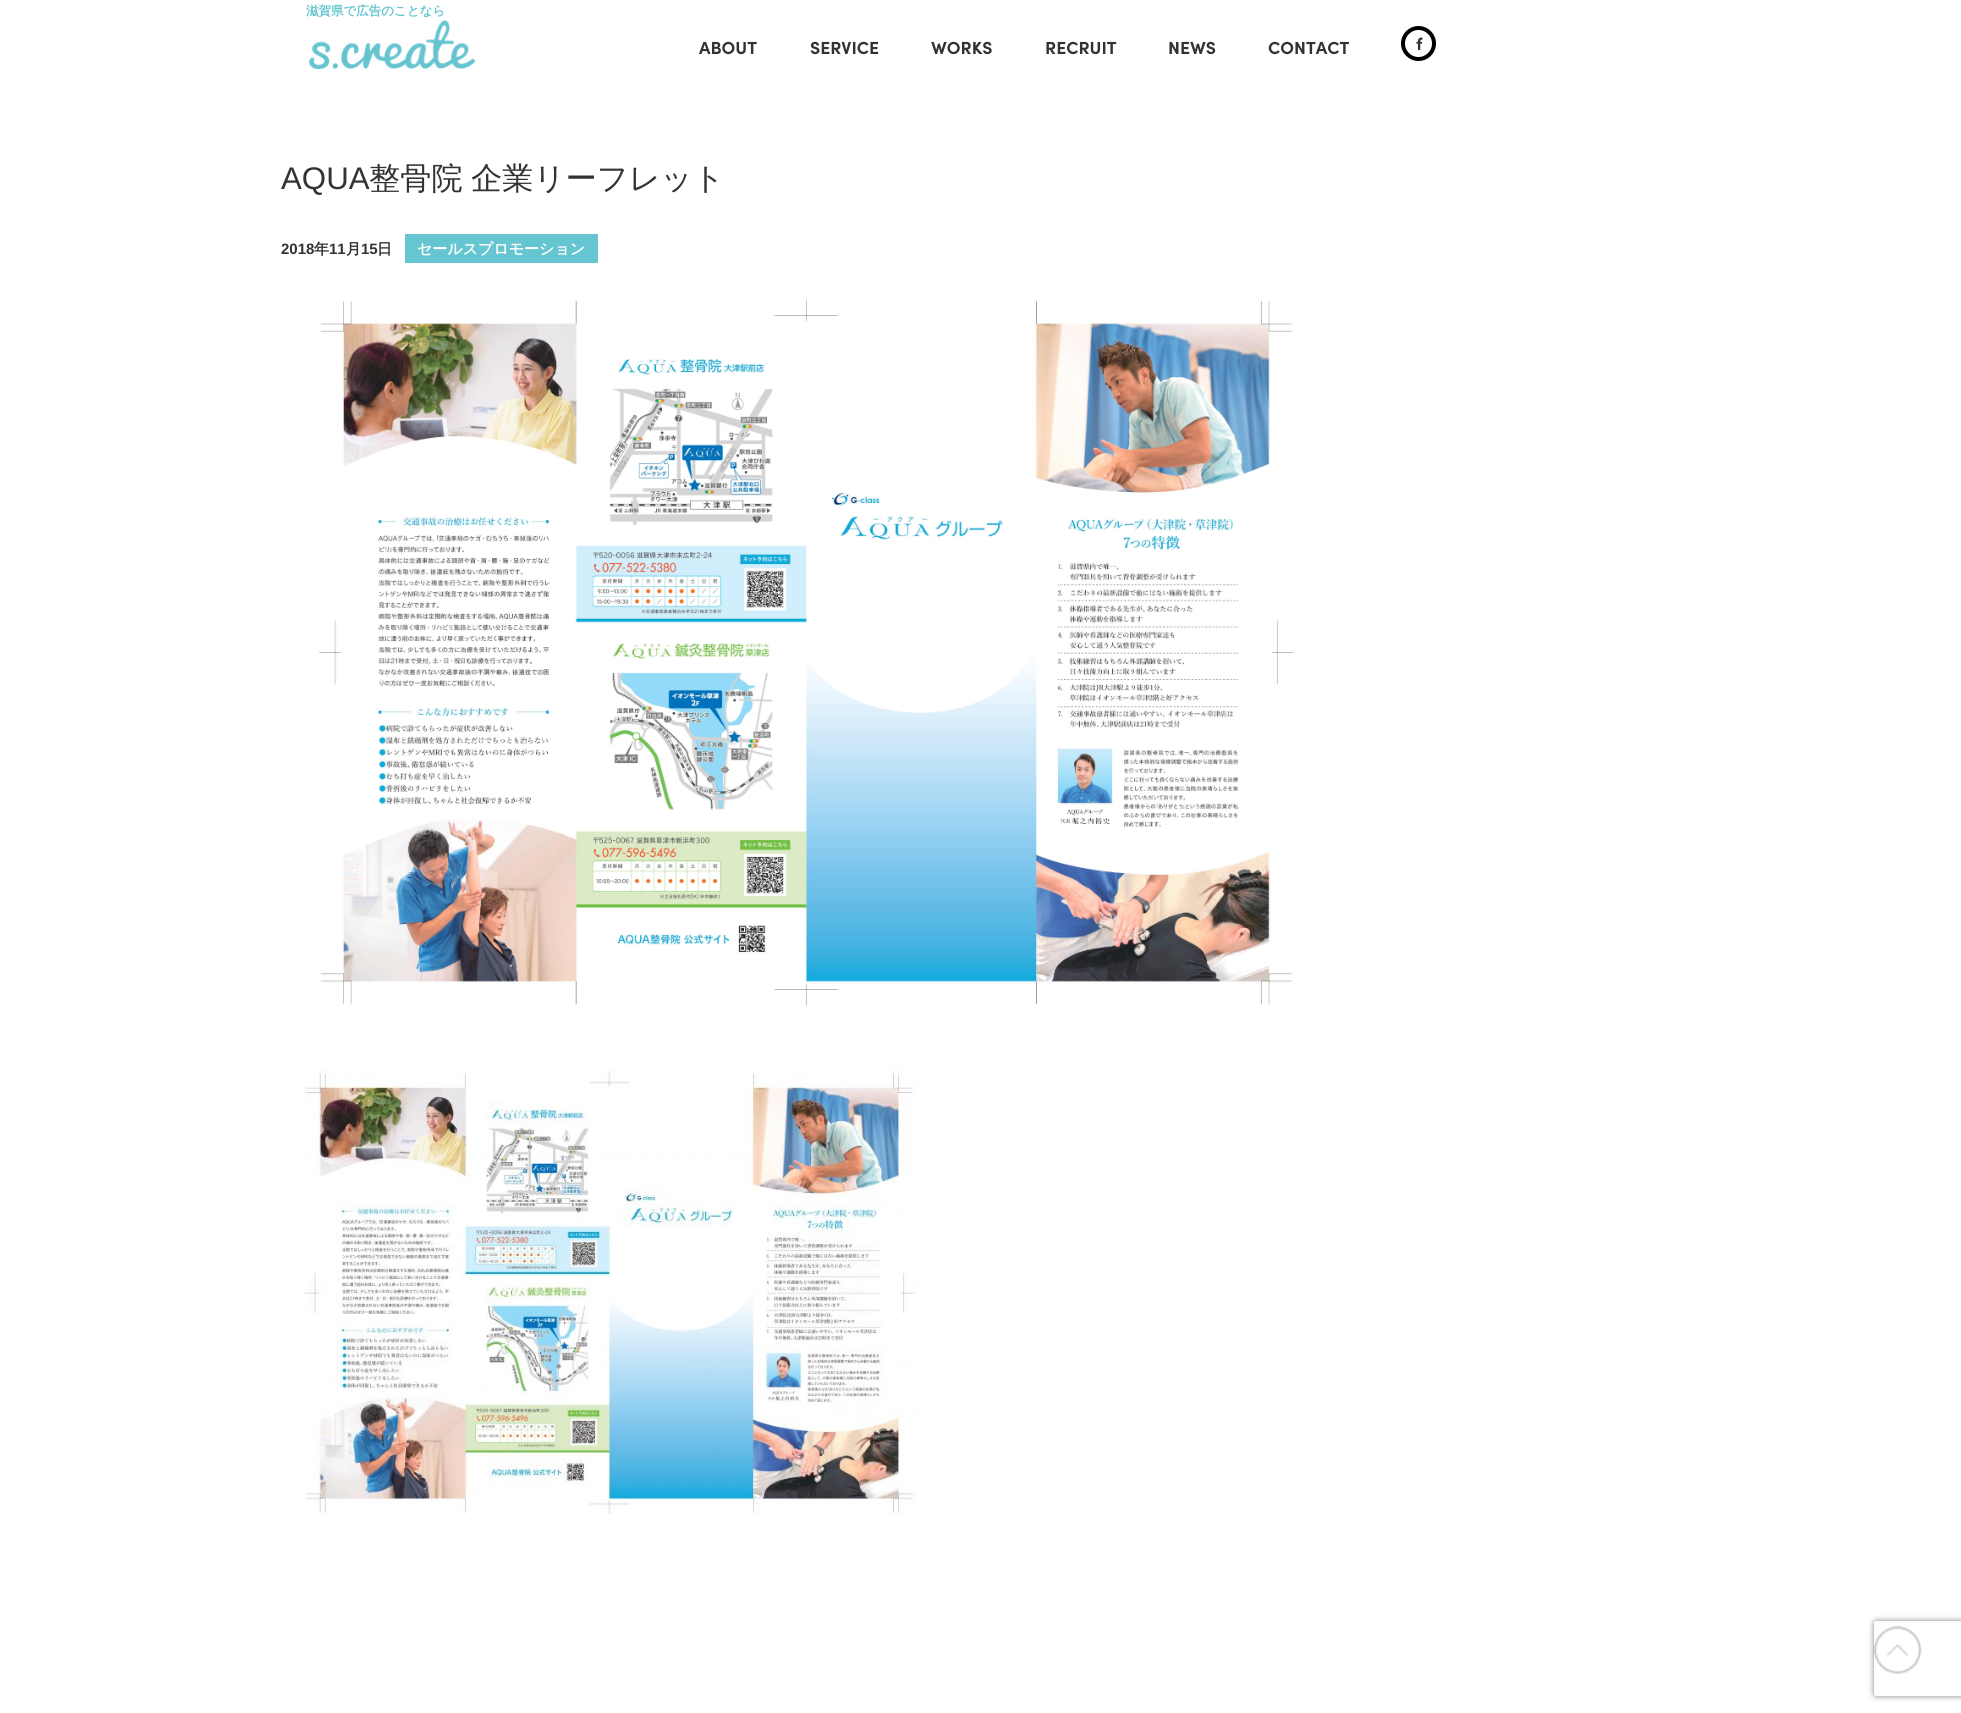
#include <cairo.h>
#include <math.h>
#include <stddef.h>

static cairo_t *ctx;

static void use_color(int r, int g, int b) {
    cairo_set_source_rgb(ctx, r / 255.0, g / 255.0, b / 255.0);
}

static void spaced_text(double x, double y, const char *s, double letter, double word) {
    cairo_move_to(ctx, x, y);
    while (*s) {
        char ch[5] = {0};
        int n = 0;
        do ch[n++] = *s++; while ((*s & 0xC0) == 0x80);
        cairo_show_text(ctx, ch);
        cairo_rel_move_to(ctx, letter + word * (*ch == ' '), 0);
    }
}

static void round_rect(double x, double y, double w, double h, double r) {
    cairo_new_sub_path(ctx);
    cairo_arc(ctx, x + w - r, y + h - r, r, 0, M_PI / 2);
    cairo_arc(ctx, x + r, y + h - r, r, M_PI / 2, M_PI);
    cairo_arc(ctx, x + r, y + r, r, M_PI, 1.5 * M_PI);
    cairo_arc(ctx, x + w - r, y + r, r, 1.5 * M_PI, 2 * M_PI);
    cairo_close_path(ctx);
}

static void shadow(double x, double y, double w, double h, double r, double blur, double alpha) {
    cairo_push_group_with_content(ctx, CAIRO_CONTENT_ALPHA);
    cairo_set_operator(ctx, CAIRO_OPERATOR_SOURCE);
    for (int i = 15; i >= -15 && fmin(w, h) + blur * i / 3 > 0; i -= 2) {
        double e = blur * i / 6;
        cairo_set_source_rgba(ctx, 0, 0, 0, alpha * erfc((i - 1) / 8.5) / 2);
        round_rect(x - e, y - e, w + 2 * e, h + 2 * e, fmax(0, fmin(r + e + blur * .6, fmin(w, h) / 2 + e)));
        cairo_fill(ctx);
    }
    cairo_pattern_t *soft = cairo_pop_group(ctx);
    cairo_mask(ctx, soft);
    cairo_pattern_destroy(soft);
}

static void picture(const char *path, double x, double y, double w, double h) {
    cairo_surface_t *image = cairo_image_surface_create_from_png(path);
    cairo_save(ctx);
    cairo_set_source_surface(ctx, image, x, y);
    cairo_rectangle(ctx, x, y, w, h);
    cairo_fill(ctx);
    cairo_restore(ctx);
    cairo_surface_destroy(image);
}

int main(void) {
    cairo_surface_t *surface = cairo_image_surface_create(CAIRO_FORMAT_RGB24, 1961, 1713);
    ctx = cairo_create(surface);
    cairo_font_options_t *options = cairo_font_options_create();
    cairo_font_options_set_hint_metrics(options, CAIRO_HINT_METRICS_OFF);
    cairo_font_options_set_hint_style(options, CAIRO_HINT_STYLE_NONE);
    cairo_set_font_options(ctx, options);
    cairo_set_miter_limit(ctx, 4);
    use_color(255, 255, 255);
    cairo_paint(ctx);
    cairo_select_font_face(ctx, "WenQuanYi Zen Hei", CAIRO_FONT_SLANT_NORMAL, CAIRO_FONT_WEIGHT_BOLD);
    cairo_set_font_size(ctx, 12.5);
    use_color(100, 197, 206);
    cairo_move_to(ctx, 306, 15);
    cairo_show_text(ctx, "滋賀県で広告のことなら");
    picture("img1.png", 309, 17, 167, 53);
    cairo_select_font_face(ctx, "Sofia", CAIRO_FONT_SLANT_NORMAL, CAIRO_FONT_WEIGHT_BOLD);
    cairo_set_font_size(ctx, 17.5);
    use_color(51, 51, 51);
    cairo_move_to(ctx, 699, 54);
    cairo_show_text(ctx, "ABOUT");
    cairo_move_to(ctx, 810, 54);
    cairo_show_text(ctx, "SERVICE");
    cairo_move_to(ctx, 931, 54);
    cairo_show_text(ctx, "WORKS");
    cairo_move_to(ctx, 1045, 54);
    cairo_show_text(ctx, "RECRUIT");
    cairo_move_to(ctx, 1168, 54);
    cairo_show_text(ctx, "NEWS");
    cairo_move_to(ctx, 1268, 54);
    cairo_show_text(ctx, "CONTACT");
    cairo_new_path(ctx);
    cairo_arc(ctx, 1418.5, 43.5, 15.5, 0, 2 * M_PI);
    use_color(0, 0, 0);
    cairo_set_line_width(ctx, 4);
    cairo_stroke(ctx);
    use_color(51, 51, 51);
    cairo_move_to(ctx, 1416, 50);
    cairo_show_text(ctx, "f");
    cairo_select_font_face(ctx, "Liberation Sans", CAIRO_FONT_SLANT_NORMAL, CAIRO_FONT_WEIGHT_NORMAL);
    cairo_set_font_size(ctx, 31.25);
    cairo_move_to(ctx, 281, 189);
    cairo_show_text(ctx, "AQUA");
    cairo_select_font_face(ctx, "WenQuanYi Zen Hei Medium", CAIRO_FONT_SLANT_NORMAL, CAIRO_FONT_WEIGHT_NORMAL);
    spaced_text(369, 189, "整骨院 企業リーフレット", 0, -1);
    cairo_select_font_face(ctx, "Liberation Sans", CAIRO_FONT_SLANT_NORMAL, CAIRO_FONT_WEIGHT_BOLD);
    cairo_set_font_size(ctx, 15);
    cairo_move_to(ctx, 281, 254);
    cairo_show_text(ctx, "2018");
    cairo_select_font_face(ctx, "WenQuanYi Zen Hei", CAIRO_FONT_SLANT_NORMAL, CAIRO_FONT_WEIGHT_BOLD);
    cairo_move_to(ctx, 314, 254);
    cairo_show_text(ctx, "年");
    cairo_select_font_face(ctx, "Liberation Sans", CAIRO_FONT_SLANT_NORMAL, CAIRO_FONT_WEIGHT_BOLD);
    cairo_move_to(ctx, 329, 254);
    cairo_show_text(ctx, "11");
    cairo_select_font_face(ctx, "WenQuanYi Zen Hei", CAIRO_FONT_SLANT_NORMAL, CAIRO_FONT_WEIGHT_BOLD);
    cairo_move_to(ctx, 346, 254);
    cairo_show_text(ctx, "月");
    cairo_select_font_face(ctx, "Liberation Sans", CAIRO_FONT_SLANT_NORMAL, CAIRO_FONT_WEIGHT_BOLD);
    cairo_move_to(ctx, 361, 254);
    cairo_show_text(ctx, "15");
    cairo_select_font_face(ctx, "WenQuanYi Zen Hei", CAIRO_FONT_SLANT_NORMAL, CAIRO_FONT_WEIGHT_BOLD);
    cairo_move_to(ctx, 377, 254);
    cairo_show_text(ctx, "日");
    use_color(101, 197, 208);
    cairo_rectangle(ctx, 405, 234, 193, 29);
    cairo_fill(ctx);
    use_color(255, 255, 255);
    cairo_move_to(ctx, 417, 254);
    cairo_show_text(ctx, "セールスプロモーション");
    picture("img2.png", 319, 299, 975, 707);
    picture("img3.png", 302, 1068, 615, 447);
    picture("img4.png", 1873, 1626, 49, 48);
    cairo_save(ctx);
    cairo_set_fill_rule(ctx, CAIRO_FILL_RULE_EVEN_ODD);
    cairo_new_path(ctx);
    cairo_move_to(ctx, 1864, 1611);
    cairo_line_to(ctx, 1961, 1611);
    cairo_line_to(ctx, 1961, 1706);
    cairo_line_to(ctx, 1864, 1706);
    cairo_close_path(ctx);
    cairo_move_to(ctx, 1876.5, 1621);
    cairo_line_to(ctx, 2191.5, 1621);
    cairo_curve_to(ctx, 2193, 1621, 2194, 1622, 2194, 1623.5);
    cairo_line_to(ctx, 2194, 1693.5);
    cairo_curve_to(ctx, 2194, 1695, 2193, 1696, 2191.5, 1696);
    cairo_line_to(ctx, 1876.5, 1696);
    cairo_curve_to(ctx, 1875, 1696, 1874, 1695, 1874, 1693.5);
    cairo_line_to(ctx, 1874, 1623.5);
    cairo_curve_to(ctx, 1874, 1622, 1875, 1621, 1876.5, 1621);
    cairo_close_path(ctx);
    cairo_clip(ctx);
    use_color(128, 128, 128);
    shadow(1874, 1621, 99, 75, 2.5, 3, 1);
    cairo_restore(ctx);
    cairo_surface_write_to_png(surface, "result.png");
    cairo_font_options_destroy(options);
    cairo_destroy(ctx);
    cairo_surface_destroy(surface);
    return 0;
}
